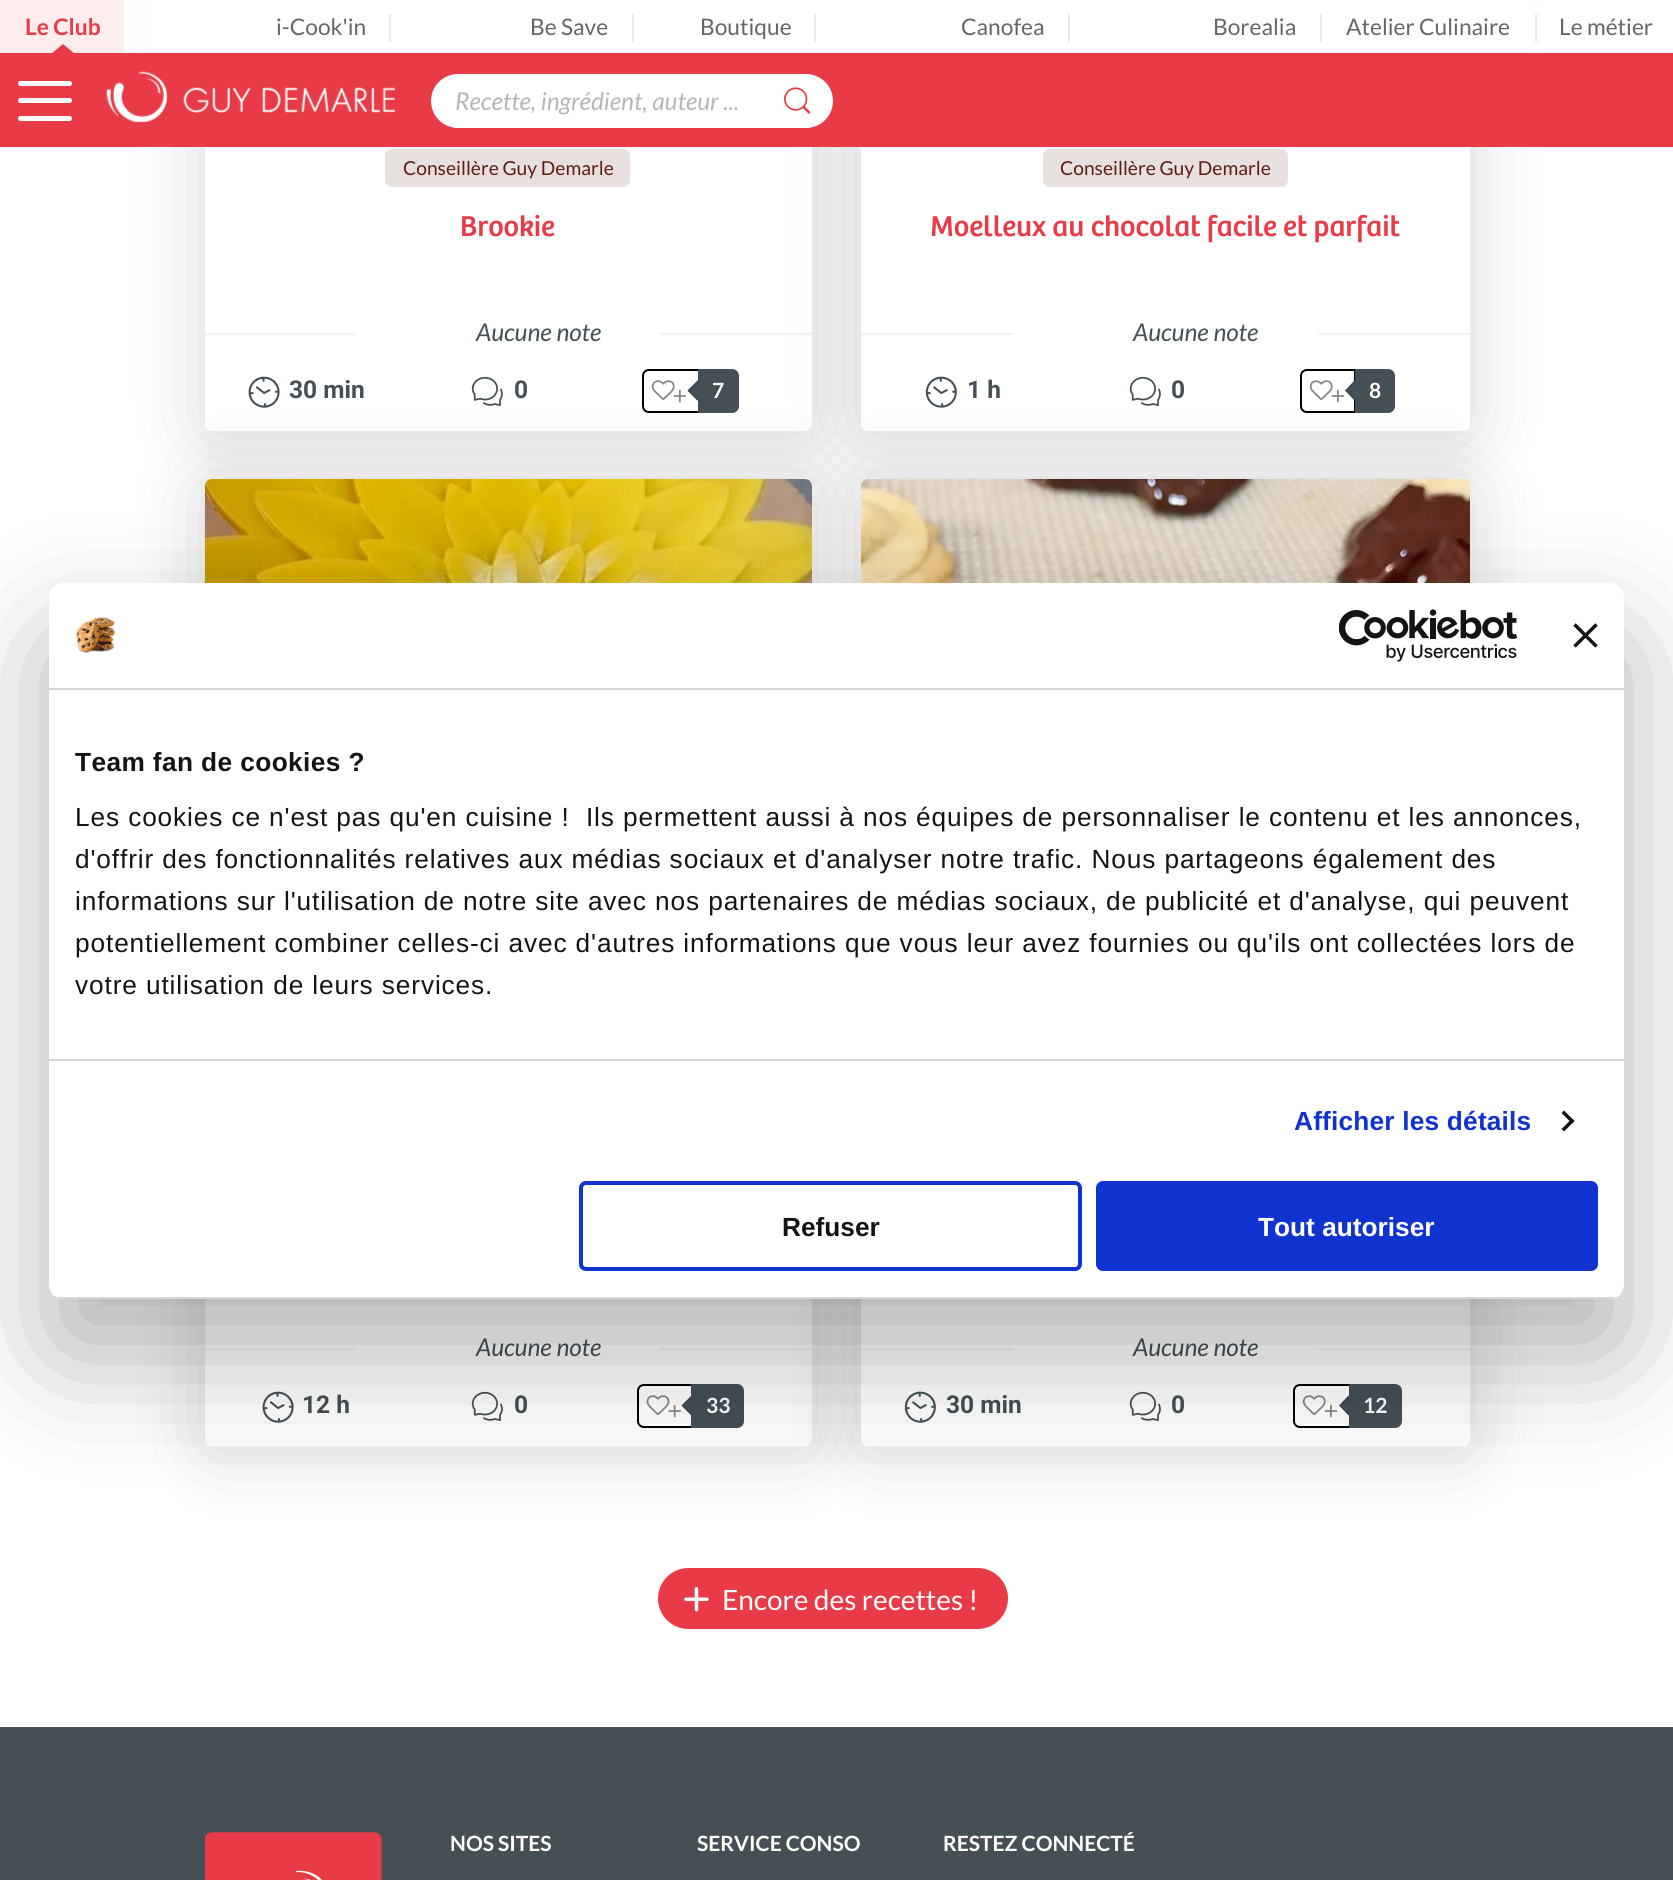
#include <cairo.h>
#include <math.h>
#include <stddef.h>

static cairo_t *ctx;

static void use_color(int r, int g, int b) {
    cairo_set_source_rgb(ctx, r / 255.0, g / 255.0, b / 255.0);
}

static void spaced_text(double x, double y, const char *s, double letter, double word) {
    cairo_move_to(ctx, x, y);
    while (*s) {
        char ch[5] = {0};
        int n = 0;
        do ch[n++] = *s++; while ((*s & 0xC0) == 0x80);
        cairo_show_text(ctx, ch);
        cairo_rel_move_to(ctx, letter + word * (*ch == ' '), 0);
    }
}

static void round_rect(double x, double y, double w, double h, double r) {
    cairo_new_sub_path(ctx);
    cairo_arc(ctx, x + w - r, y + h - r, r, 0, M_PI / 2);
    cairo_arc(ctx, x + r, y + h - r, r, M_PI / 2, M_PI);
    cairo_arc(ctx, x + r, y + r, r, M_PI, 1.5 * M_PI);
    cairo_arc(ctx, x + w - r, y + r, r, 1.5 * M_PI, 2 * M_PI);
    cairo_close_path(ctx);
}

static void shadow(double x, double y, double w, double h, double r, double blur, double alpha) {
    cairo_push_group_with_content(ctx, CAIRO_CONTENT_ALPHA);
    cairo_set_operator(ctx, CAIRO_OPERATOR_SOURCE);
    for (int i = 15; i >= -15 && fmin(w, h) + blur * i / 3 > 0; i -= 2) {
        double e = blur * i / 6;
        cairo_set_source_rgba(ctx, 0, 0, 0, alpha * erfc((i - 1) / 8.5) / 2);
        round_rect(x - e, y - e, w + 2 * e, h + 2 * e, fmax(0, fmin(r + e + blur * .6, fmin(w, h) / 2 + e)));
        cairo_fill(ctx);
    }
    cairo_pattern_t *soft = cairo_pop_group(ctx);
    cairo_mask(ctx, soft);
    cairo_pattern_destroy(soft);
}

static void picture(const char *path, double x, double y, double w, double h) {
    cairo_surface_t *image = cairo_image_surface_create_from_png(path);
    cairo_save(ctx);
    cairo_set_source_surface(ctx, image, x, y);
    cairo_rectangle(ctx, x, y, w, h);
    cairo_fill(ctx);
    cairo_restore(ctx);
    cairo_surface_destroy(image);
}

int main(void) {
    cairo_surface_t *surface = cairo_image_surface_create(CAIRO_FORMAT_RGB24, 1673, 1880);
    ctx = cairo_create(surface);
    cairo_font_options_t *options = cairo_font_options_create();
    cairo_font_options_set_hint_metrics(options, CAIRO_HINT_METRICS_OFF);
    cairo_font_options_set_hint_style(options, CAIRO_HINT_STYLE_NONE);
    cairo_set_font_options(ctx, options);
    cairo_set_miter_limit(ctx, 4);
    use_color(255, 255, 255);
    cairo_paint(ctx);
    use_color(0, 0, 0);
    shadow(205, -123, 607, 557, 7, 38.5, 0.16);
    use_color(255, 255, 255);
    round_rect(205, -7, 607, 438, 7);
    cairo_fill(ctx);
    use_color(242, 242, 242);
    cairo_rectangle(ctx, 205, 333, 607, 2);
    cairo_fill(ctx);
    use_color(0, 0, 0);
    shadow(861, -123, 609, 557, 7, 38.5, 0.16);
    use_color(255, 255, 255);
    round_rect(861, -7, 609, 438, 7);
    cairo_fill(ctx);
    cairo_rectangle(ctx, 146, 0, 1383, 53);
    cairo_fill(ctx);
    use_color(255, 237, 237);
    cairo_rectangle(ctx, 0, 0, 124, 53);
    cairo_fill(ctx);
    cairo_select_font_face(ctx, "Lato", CAIRO_FONT_SLANT_NORMAL, CAIRO_FONT_WEIGHT_BOLD);
    cairo_set_font_size(ctx, 22.75);
    use_color(232, 59, 71);
    cairo_move_to(ctx, 25, 35);
    cairo_show_text(ctx, "Le Club");
    cairo_rectangle(ctx, 0, 53, 1673, 94);
    cairo_fill(ctx);
    cairo_new_path(ctx);
    cairo_move_to(ctx, 75, 54);
    cairo_line_to(ctx, 51, 54);
    cairo_line_to(ctx, 63, 44);
    cairo_close_path(ctx);
    cairo_fill(ctx);
    cairo_select_font_face(ctx, "Lato", CAIRO_FONT_SLANT_NORMAL, CAIRO_FONT_WEIGHT_NORMAL);
    use_color(102, 102, 102);
    cairo_move_to(ctx, 276, 35);
    cairo_show_text(ctx, "i-Cook'in");
    use_color(233, 233, 233);
    cairo_rectangle(ctx, 389, 14, 2, 28);
    cairo_fill(ctx);
    use_color(102, 102, 102);
    cairo_move_to(ctx, 530, 35);
    cairo_show_text(ctx, "Be Save");
    use_color(233, 233, 233);
    cairo_rectangle(ctx, 632, 14, 2, 28);
    cairo_fill(ctx);
    use_color(102, 102, 102);
    cairo_move_to(ctx, 700, 35);
    cairo_show_text(ctx, "Boutique");
    use_color(233, 233, 233);
    cairo_rectangle(ctx, 814, 14, 2, 28);
    cairo_fill(ctx);
    use_color(102, 102, 102);
    cairo_move_to(ctx, 961, 35);
    cairo_show_text(ctx, "Canofea");
    use_color(233, 233, 233);
    cairo_rectangle(ctx, 1068, 14, 2, 28);
    cairo_fill(ctx);
    use_color(102, 102, 102);
    cairo_move_to(ctx, 1213, 35);
    cairo_show_text(ctx, "Borealia");
    use_color(233, 233, 233);
    cairo_rectangle(ctx, 1320, 14, 2, 28);
    cairo_fill(ctx);
    use_color(102, 102, 102);
    cairo_move_to(ctx, 1346, 35);
    cairo_show_text(ctx, "Atelier Culinaire");
    use_color(233, 233, 233);
    cairo_rectangle(ctx, 1535, 14, 2, 28);
    cairo_fill(ctx);
    use_color(102, 102, 102);
    cairo_move_to(ctx, 1559, 35);
    cairo_show_text(ctx, "Le métier");
    use_color(255, 255, 255);
    round_rect(18, 98, 54, 5, 2.5);
    cairo_fill(ctx);
    round_rect(18, 81, 54, 5, 2.5);
    cairo_fill(ctx);
    round_rect(18, 116, 54, 5, 2.5);
    cairo_fill(ctx);
    picture("img1.png", 106, 71, 290, 52);
    round_rect(431, 74, 402, 54, 27);
    cairo_fill(ctx);
    cairo_select_font_face(ctx, "Lato", CAIRO_FONT_SLANT_ITALIC, CAIRO_FONT_WEIGHT_NORMAL);
    cairo_set_font_size(ctx, 24.5);
    use_color(182, 182, 182);
    cairo_move_to(ctx, 455, 110);
    cairo_show_text(ctx, "Recette, ingrédient, auteur ...");
    picture("img2.png", 784, 87, 27, 27);
    use_color(232, 224, 222);
    round_rect(385, 149, 245, 38, 7);
    cairo_fill(ctx);
    cairo_select_font_face(ctx, "Lato", CAIRO_FONT_SLANT_NORMAL, CAIRO_FONT_WEIGHT_NORMAL);
    cairo_set_font_size(ctx, 19.25);
    use_color(92, 30, 17);
    cairo_move_to(ctx, 403, 175);
    cairo_show_text(ctx, "Conseillère Guy Demarle");
    cairo_select_font_face(ctx, "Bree", CAIRO_FONT_SLANT_NORMAL, CAIRO_FONT_WEIGHT_NORMAL);
    cairo_set_font_size(ctx, 29.75);
    use_color(232, 59, 71);
    cairo_move_to(ctx, 460, 236);
    cairo_show_text(ctx, "Brookie");
    use_color(255, 255, 255);
    cairo_rectangle(ctx, 355, 333, 305, 2);
    cairo_fill(ctx);
    cairo_select_font_face(ctx, "Lato", CAIRO_FONT_SLANT_ITALIC, CAIRO_FONT_WEIGHT_NORMAL);
    cairo_set_font_size(ctx, 24.5);
    use_color(68, 80, 86);
    cairo_move_to(ctx, 476, 341);
    cairo_show_text(ctx, "Aucune note");
    picture("img3.png", 248, 376, 32, 32);
    cairo_select_font_face(ctx, "Roboto", CAIRO_FONT_SLANT_NORMAL, CAIRO_FONT_WEIGHT_BOLD);
    cairo_move_to(ctx, 289, 398);
    cairo_show_text(ctx, "30 min");
    picture("img4.png", 471, 376, 32, 30);
    cairo_move_to(ctx, 514, 398);
    cairo_show_text(ctx, "0");
    cairo_new_path(ctx);
    cairo_move_to(ctx, 649, 370);
    cairo_line_to(ctx, 699, 370);
    cairo_line_to(ctx, 699, 412);
    cairo_line_to(ctx, 649, 412);
    cairo_curve_to(ctx, 645.5, 412, 643, 409.5, 643, 406);
    cairo_line_to(ctx, 643, 376);
    cairo_curve_to(ctx, 643, 372.5, 645.5, 370, 649, 370);
    cairo_close_path(ctx);
    use_color(0, 0, 0);
    cairo_stroke(ctx);
    picture("img5.png", 651, 380, 35, 23);
    use_color(68, 80, 86);
    cairo_new_path(ctx);
    cairo_move_to(ctx, 698, 369);
    cairo_line_to(ctx, 732, 369);
    cairo_curve_to(ctx, 736, 369, 739, 372, 739, 376);
    cairo_line_to(ctx, 739, 406);
    cairo_curve_to(ctx, 739, 410, 736, 413, 732, 413);
    cairo_line_to(ctx, 698, 413);
    cairo_close_path(ctx);
    cairo_fill(ctx);
    picture("img6.png", 925, 376, 32, 32);
    use_color(0, 0, 0);
    shadow(205, 483, 607, 966, 7, 38.5, 0.16);
    use_color(68, 80, 86);
    cairo_new_path(ctx);
    cairo_move_to(ctx, 697.5, 380.5);
    cairo_line_to(ctx, 707.5, 390.5);
    cairo_line_to(ctx, 697.5, 400.5);
    cairo_line_to(ctx, 687.5, 390.5);
    cairo_close_path(ctx);
    cairo_fill(ctx);
    use_color(63, 73, 79);
    cairo_new_path(ctx);
    cairo_move_to(ctx, 697.5, 400.5);
    cairo_line_to(ctx, 687.5, 390.5);
    cairo_line_to(ctx, 690, 390.5);
    cairo_line_to(ctx, 699, 399);
    cairo_close_path(ctx);
    cairo_fill(ctx);
    cairo_set_source_rgba(ctx, 0.133, 0.141, 0.149, 0.15);
    cairo_new_path(ctx);
    cairo_move_to(ctx, 687.5, 390.5);
    cairo_line_to(ctx, 697.5, 380.5);
    cairo_line_to(ctx, 699, 382);
    cairo_line_to(ctx, 690, 390.5);
    cairo_close_path(ctx);
    cairo_fill(ctx);
    cairo_select_font_face(ctx, "Lato", CAIRO_FONT_SLANT_NORMAL, CAIRO_FONT_WEIGHT_BOLD);
    cairo_set_font_size(ctx, 21);
    use_color(255, 255, 255);
    cairo_move_to(ctx, 712, 398);
    cairo_show_text(ctx, "7");
    use_color(232, 224, 222);
    round_rect(1043, 149, 245, 38, 7);
    cairo_fill(ctx);
    cairo_select_font_face(ctx, "Lato", CAIRO_FONT_SLANT_NORMAL, CAIRO_FONT_WEIGHT_NORMAL);
    cairo_set_font_size(ctx, 19.25);
    use_color(92, 30, 17);
    cairo_move_to(ctx, 1060, 175);
    cairo_show_text(ctx, "Conseillère Guy Demarle");
    cairo_select_font_face(ctx, "Bree", CAIRO_FONT_SLANT_NORMAL, CAIRO_FONT_WEIGHT_NORMAL);
    cairo_set_font_size(ctx, 29.75);
    use_color(232, 59, 71);
    cairo_move_to(ctx, 930, 236);
    cairo_show_text(ctx, "Moelleux au chocolat facile et parfait");
    use_color(242, 242, 242);
    cairo_rectangle(ctx, 861, 333, 609, 2);
    cairo_fill(ctx);
    use_color(255, 255, 255);
    cairo_rectangle(ctx, 1013, 333, 305, 2);
    cairo_fill(ctx);
    cairo_select_font_face(ctx, "Lato", CAIRO_FONT_SLANT_ITALIC, CAIRO_FONT_WEIGHT_NORMAL);
    cairo_set_font_size(ctx, 24.5);
    use_color(68, 80, 86);
    cairo_move_to(ctx, 1133, 341);
    cairo_show_text(ctx, "Aucune note");
    cairo_select_font_face(ctx, "Roboto", CAIRO_FONT_SLANT_NORMAL, CAIRO_FONT_WEIGHT_BOLD);
    cairo_move_to(ctx, 967, 398);
    cairo_show_text(ctx, "1 h");
    picture("img4.png", 1129, 376, 32, 30);
    cairo_move_to(ctx, 1171, 398);
    cairo_show_text(ctx, "0");
    cairo_new_path(ctx);
    cairo_move_to(ctx, 1307, 370);
    cairo_line_to(ctx, 1355, 370);
    cairo_line_to(ctx, 1355, 412);
    cairo_line_to(ctx, 1307, 412);
    cairo_curve_to(ctx, 1303.5, 412, 1301, 409.5, 1301, 406);
    cairo_line_to(ctx, 1301, 376);
    cairo_curve_to(ctx, 1301, 372.5, 1303.5, 370, 1307, 370);
    cairo_close_path(ctx);
    use_color(0, 0, 0);
    cairo_stroke(ctx);
    picture("img5.png", 1309, 380, 35, 23);
    use_color(68, 80, 86);
    cairo_new_path(ctx);
    cairo_move_to(ctx, 1355, 369);
    cairo_line_to(ctx, 1388, 369);
    cairo_curve_to(ctx, 1392, 369, 1395, 372, 1395, 376);
    cairo_line_to(ctx, 1395, 406);
    cairo_curve_to(ctx, 1395, 410, 1392, 413, 1388, 413);
    cairo_line_to(ctx, 1355, 413);
    cairo_close_path(ctx);
    cairo_fill(ctx);
    use_color(255, 255, 255);
    round_rect(205, 480, 607, 966, 7);
    cairo_fill(ctx);
    picture("img7.png", 204, 479, 608, 104);
    use_color(242, 242, 242);
    cairo_rectangle(ctx, 205, 1348, 607, 2);
    cairo_fill(ctx);
    use_color(0, 0, 0);
    shadow(861, 483, 609, 966, 7, 38.5, 0.16);
    use_color(68, 80, 86);
    cairo_new_path(ctx);
    cairo_move_to(ctx, 1354.5, 380.5);
    cairo_line_to(ctx, 1364.5, 390.5);
    cairo_line_to(ctx, 1354.5, 400.5);
    cairo_line_to(ctx, 1345, 390.5);
    cairo_close_path(ctx);
    cairo_fill(ctx);
    cairo_set_source_rgba(ctx, 0.133, 0.141, 0.149, 0.15);
    cairo_new_path(ctx);
    cairo_move_to(ctx, 1354.5, 400.5);
    cairo_line_to(ctx, 1345, 390.5);
    cairo_line_to(ctx, 1347.5, 390.5);
    cairo_line_to(ctx, 1356, 399);
    cairo_close_path(ctx);
    cairo_fill(ctx);
    cairo_new_path(ctx);
    cairo_move_to(ctx, 1345, 390.5);
    cairo_line_to(ctx, 1354.5, 380.5);
    cairo_line_to(ctx, 1356, 382);
    cairo_line_to(ctx, 1347.5, 390.5);
    cairo_close_path(ctx);
    cairo_fill(ctx);
    cairo_select_font_face(ctx, "Lato", CAIRO_FONT_SLANT_NORMAL, CAIRO_FONT_WEIGHT_BOLD);
    cairo_set_font_size(ctx, 21);
    use_color(255, 255, 255);
    cairo_move_to(ctx, 1369, 398);
    cairo_show_text(ctx, "8");
    cairo_rectangle(ctx, 355, 1348, 305, 2);
    cairo_fill(ctx);
    cairo_select_font_face(ctx, "Lato", CAIRO_FONT_SLANT_ITALIC, CAIRO_FONT_WEIGHT_NORMAL);
    cairo_set_font_size(ctx, 24.5);
    use_color(68, 80, 86);
    cairo_move_to(ctx, 476, 1356);
    cairo_show_text(ctx, "Aucune note");
    picture("img3.png", 262, 1391, 32, 32);
    cairo_select_font_face(ctx, "Roboto", CAIRO_FONT_SLANT_NORMAL, CAIRO_FONT_WEIGHT_BOLD);
    cairo_move_to(ctx, 302, 1413);
    cairo_show_text(ctx, "12 h");
    picture("img4.png", 471, 1391, 32, 30);
    cairo_move_to(ctx, 514, 1413);
    cairo_show_text(ctx, "0");
    cairo_new_path(ctx);
    cairo_move_to(ctx, 644, 1385);
    cairo_line_to(ctx, 692, 1385);
    cairo_line_to(ctx, 692, 1427);
    cairo_line_to(ctx, 644, 1427);
    cairo_curve_to(ctx, 640.5, 1427, 638, 1424.5, 638, 1421);
    cairo_line_to(ctx, 638, 1391);
    cairo_curve_to(ctx, 638, 1387.5, 640.5, 1385, 644, 1385);
    cairo_close_path(ctx);
    use_color(0, 0, 0);
    cairo_stroke(ctx);
    picture("img8.png", 646, 1395, 35, 23);
    use_color(68, 80, 86);
    cairo_new_path(ctx);
    cairo_move_to(ctx, 691, 1384);
    cairo_line_to(ctx, 737, 1384);
    cairo_curve_to(ctx, 741, 1384, 744, 1387, 744, 1391);
    cairo_line_to(ctx, 744, 1421);
    cairo_curve_to(ctx, 744, 1425, 741, 1428, 737, 1428);
    cairo_line_to(ctx, 691, 1428);
    cairo_close_path(ctx);
    cairo_fill(ctx);
    cairo_new_path(ctx);
    cairo_move_to(ctx, 691.5, 1395.5);
    cairo_line_to(ctx, 701.5, 1405.5);
    cairo_line_to(ctx, 691.5, 1415.5);
    cairo_line_to(ctx, 681.5, 1405.5);
    cairo_close_path(ctx);
    cairo_fill(ctx);
    use_color(63, 73, 79);
    cairo_new_path(ctx);
    cairo_move_to(ctx, 691.5, 1415.5);
    cairo_line_to(ctx, 681.5, 1405.5);
    cairo_line_to(ctx, 684, 1405.5);
    cairo_line_to(ctx, 693, 1414);
    cairo_close_path(ctx);
    cairo_fill(ctx);
    cairo_set_source_rgba(ctx, 0.133, 0.141, 0.149, 0.15);
    cairo_new_path(ctx);
    cairo_move_to(ctx, 681.5, 1405.5);
    cairo_line_to(ctx, 691.5, 1395.5);
    cairo_line_to(ctx, 693, 1397);
    cairo_line_to(ctx, 684, 1405.5);
    cairo_close_path(ctx);
    cairo_fill(ctx);
    cairo_select_font_face(ctx, "Lato", CAIRO_FONT_SLANT_NORMAL, CAIRO_FONT_WEIGHT_BOLD);
    cairo_set_font_size(ctx, 21);
    use_color(255, 255, 255);
    cairo_move_to(ctx, 706, 1413);
    cairo_show_text(ctx, "33");
    round_rect(861, 480, 609, 966, 7);
    cairo_fill(ctx);
    picture("img9.png", 861, 479, 609, 104);
    use_color(242, 242, 242);
    cairo_rectangle(ctx, 861, 1348, 609, 2);
    cairo_fill(ctx);
    use_color(255, 255, 255);
    cairo_rectangle(ctx, 1013, 1348, 305, 2);
    cairo_fill(ctx);
    cairo_select_font_face(ctx, "Lato", CAIRO_FONT_SLANT_ITALIC, CAIRO_FONT_WEIGHT_NORMAL);
    cairo_set_font_size(ctx, 24.5);
    use_color(68, 80, 86);
    cairo_move_to(ctx, 1133, 1356);
    cairo_show_text(ctx, "Aucune note");
    picture("img6.png", 904, 1391, 32, 32);
    cairo_select_font_face(ctx, "Roboto", CAIRO_FONT_SLANT_NORMAL, CAIRO_FONT_WEIGHT_BOLD);
    cairo_move_to(ctx, 946, 1413);
    cairo_show_text(ctx, "30 min");
    picture("img4.png", 1129, 1391, 32, 30);
    cairo_move_to(ctx, 1171, 1413);
    cairo_show_text(ctx, "0");
    cairo_new_path(ctx);
    cairo_move_to(ctx, 1300, 1385);
    cairo_line_to(ctx, 1350, 1385);
    cairo_line_to(ctx, 1350, 1427);
    cairo_line_to(ctx, 1300, 1427);
    cairo_curve_to(ctx, 1296.5, 1427, 1294, 1424.5, 1294, 1421);
    cairo_line_to(ctx, 1294, 1391);
    cairo_curve_to(ctx, 1294, 1387.5, 1296.5, 1385, 1300, 1385);
    cairo_close_path(ctx);
    use_color(0, 0, 0);
    cairo_stroke(ctx);
    picture("img5.png", 1302, 1395, 35, 23);
    use_color(68, 80, 86);
    cairo_new_path(ctx);
    cairo_move_to(ctx, 1349, 1384);
    cairo_line_to(ctx, 1395, 1384);
    cairo_curve_to(ctx, 1399, 1384, 1402, 1387, 1402, 1391);
    cairo_line_to(ctx, 1402, 1421);
    cairo_curve_to(ctx, 1402, 1425, 1399, 1428, 1395, 1428);
    cairo_line_to(ctx, 1349, 1428);
    cairo_close_path(ctx);
    cairo_fill(ctx);
    cairo_new_path(ctx);
    cairo_move_to(ctx, 1348.5, 1395.5);
    cairo_line_to(ctx, 1358.5, 1405.5);
    cairo_line_to(ctx, 1348.5, 1415.5);
    cairo_line_to(ctx, 1339, 1405.5);
    cairo_close_path(ctx);
    cairo_fill(ctx);
    cairo_set_source_rgba(ctx, 0.133, 0.141, 0.149, 0.15);
    cairo_new_path(ctx);
    cairo_move_to(ctx, 1348.5, 1415.5);
    cairo_line_to(ctx, 1339, 1405.5);
    cairo_line_to(ctx, 1341, 1405.5);
    cairo_line_to(ctx, 1350, 1414);
    cairo_close_path(ctx);
    cairo_fill(ctx);
    cairo_new_path(ctx);
    cairo_move_to(ctx, 1339, 1405.5);
    cairo_line_to(ctx, 1348.5, 1395.5);
    cairo_line_to(ctx, 1350, 1397);
    cairo_line_to(ctx, 1341, 1405.5);
    cairo_close_path(ctx);
    cairo_fill(ctx);
    cairo_select_font_face(ctx, "Lato", CAIRO_FONT_SLANT_NORMAL, CAIRO_FONT_WEIGHT_BOLD);
    cairo_set_font_size(ctx, 21);
    use_color(255, 255, 255);
    cairo_move_to(ctx, 1363, 1413);
    cairo_show_text(ctx, "12");
    use_color(232, 59, 71);
    round_rect(659, 1569, 348, 59, 29.5);
    cairo_fill_preserve(ctx);
    cairo_stroke(ctx);
    picture("img10.png", 684, 1587, 25, 25);
    cairo_select_font_face(ctx, "Lato", CAIRO_FONT_SLANT_NORMAL, CAIRO_FONT_WEIGHT_NORMAL);
    cairo_set_font_size(ctx, 28);
    use_color(255, 255, 255);
    cairo_move_to(ctx, 722, 1610);
    cairo_show_text(ctx, "Encore des recettes !");
    use_color(0, 0, 0);
    shadow(49, 639, 1575, 716, 14, 59.5, 0.3);
    use_color(255, 255, 255);
    round_rect(49, 583, 1575, 716, 14);
    cairo_fill(ctx);
    use_color(214, 214, 214);
    cairo_rectangle(ctx, 49, 688, 1575, 2);
    cairo_fill(ctx);
    picture("img11.png", 75, 617, 41, 36);
    picture("img12.png", 1339, 609, 178, 53);
    picture("img13.png", 1573, 623, 25, 25);
    cairo_rectangle(ctx, 49, 1059, 1575, 2);
    cairo_fill(ctx);
    cairo_select_font_face(ctx, "Liberation Sans", CAIRO_FONT_SLANT_NORMAL, CAIRO_FONT_WEIGHT_BOLD);
    cairo_set_font_size(ctx, 26.25);
    use_color(20, 20, 20);
    spaced_text(75, 771, "Team fan de cookies ?", 0.4, 0);
    cairo_select_font_face(ctx, "Liberation Sans", CAIRO_FONT_SLANT_NORMAL, CAIRO_FONT_WEIGHT_NORMAL);
    spaced_text(75, 826, "Les cookies ce n'est pas qu'en cuisine !  Ils permettent aussi à nos équipes de personnaliser le contenu et les annonces,", 0.88, 0);
    spaced_text(75, 868, "d'offrir des fonctionnalités relatives aux médias sociaux et d'analyser notre trafic. Nous partageons également des", 0.88, 0);
    spaced_text(75, 910, "informations sur l'utilisation de notre site avec nos partenaires de médias sociaux, de publicité et d'analyse, qui peuvent", 0.88, 0);
    spaced_text(75, 952, "potentiellement combiner celles-ci avec d'autres informations que vous leur avez fournies ou qu'ils ont collectées lors de", 0.88, 0);
    spaced_text(75, 994, "votre utilisation de leurs services.", 0.88, 0);
    cairo_select_font_face(ctx, "Liberation Sans", CAIRO_FONT_SLANT_NORMAL, CAIRO_FONT_WEIGHT_BOLD);
    use_color(16, 50, 207);
    spaced_text(1294, 1130, "Afficher les détails", 0.2, 0);
    use_color(20, 20, 20);
    cairo_new_path(ctx);
    cairo_move_to(ctx, 1564, 1110.5);
    cairo_line_to(ctx, 1574.5, 1121);
    cairo_line_to(ctx, 1572, 1123.5);
    cairo_line_to(ctx, 1561.5, 1113);
    cairo_close_path(ctx);
    cairo_fill(ctx);
    cairo_new_path(ctx);
    cairo_move_to(ctx, 1572, 1118.5);
    cairo_line_to(ctx, 1574.5, 1121);
    cairo_line_to(ctx, 1564, 1131.5);
    cairo_line_to(ctx, 1561.5, 1129);
    cairo_close_path(ctx);
    cairo_fill(ctx);
    cairo_save(ctx);
    round_rect(49, 583, 1575, 716, 14);
    cairo_clip(ctx);
    use_color(214, 214, 214);
    cairo_rectangle(ctx, 49, 1297, 1575, 2);
    cairo_fill(ctx);
    cairo_restore(ctx);
    round_rect(581, 1183, 499, 86, 5);
    use_color(16, 50, 207);
    cairo_set_line_width(ctx, 4);
    cairo_stroke(ctx);
    use_color(20, 20, 20);
    cairo_move_to(ctx, 782, 1236);
    cairo_show_text(ctx, "Refuser");
    use_color(16, 50, 207);
    round_rect(1098, 1183, 498, 86, 5);
    cairo_fill_preserve(ctx);
    cairo_stroke(ctx);
    use_color(255, 255, 255);
    cairo_move_to(ctx, 1258, 1236);
    cairo_show_text(ctx, "Tout autoriser");
    use_color(68, 80, 86);
    cairo_rectangle(ctx, 0, 1727, 1673, 153);
    cairo_fill(ctx);
    picture("img14.png", 205, 1832, 177, 48);
    cairo_select_font_face(ctx, "Lato", CAIRO_FONT_SLANT_NORMAL, CAIRO_FONT_WEIGHT_BOLD);
    cairo_set_font_size(ctx, 21);
    use_color(255, 255, 255);
    cairo_move_to(ctx, 450, 1851);
    cairo_show_text(ctx, "NOS SITES");
    cairo_move_to(ctx, 697, 1851);
    cairo_show_text(ctx, "SERVICE CONSO");
    cairo_move_to(ctx, 943, 1851);
    cairo_show_text(ctx, "RESTEZ CONNECTÉ");
    cairo_surface_write_to_png(surface, "result.png");
    cairo_font_options_destroy(options);
    cairo_destroy(ctx);
    cairo_surface_destroy(surface);
    return 0;
}
